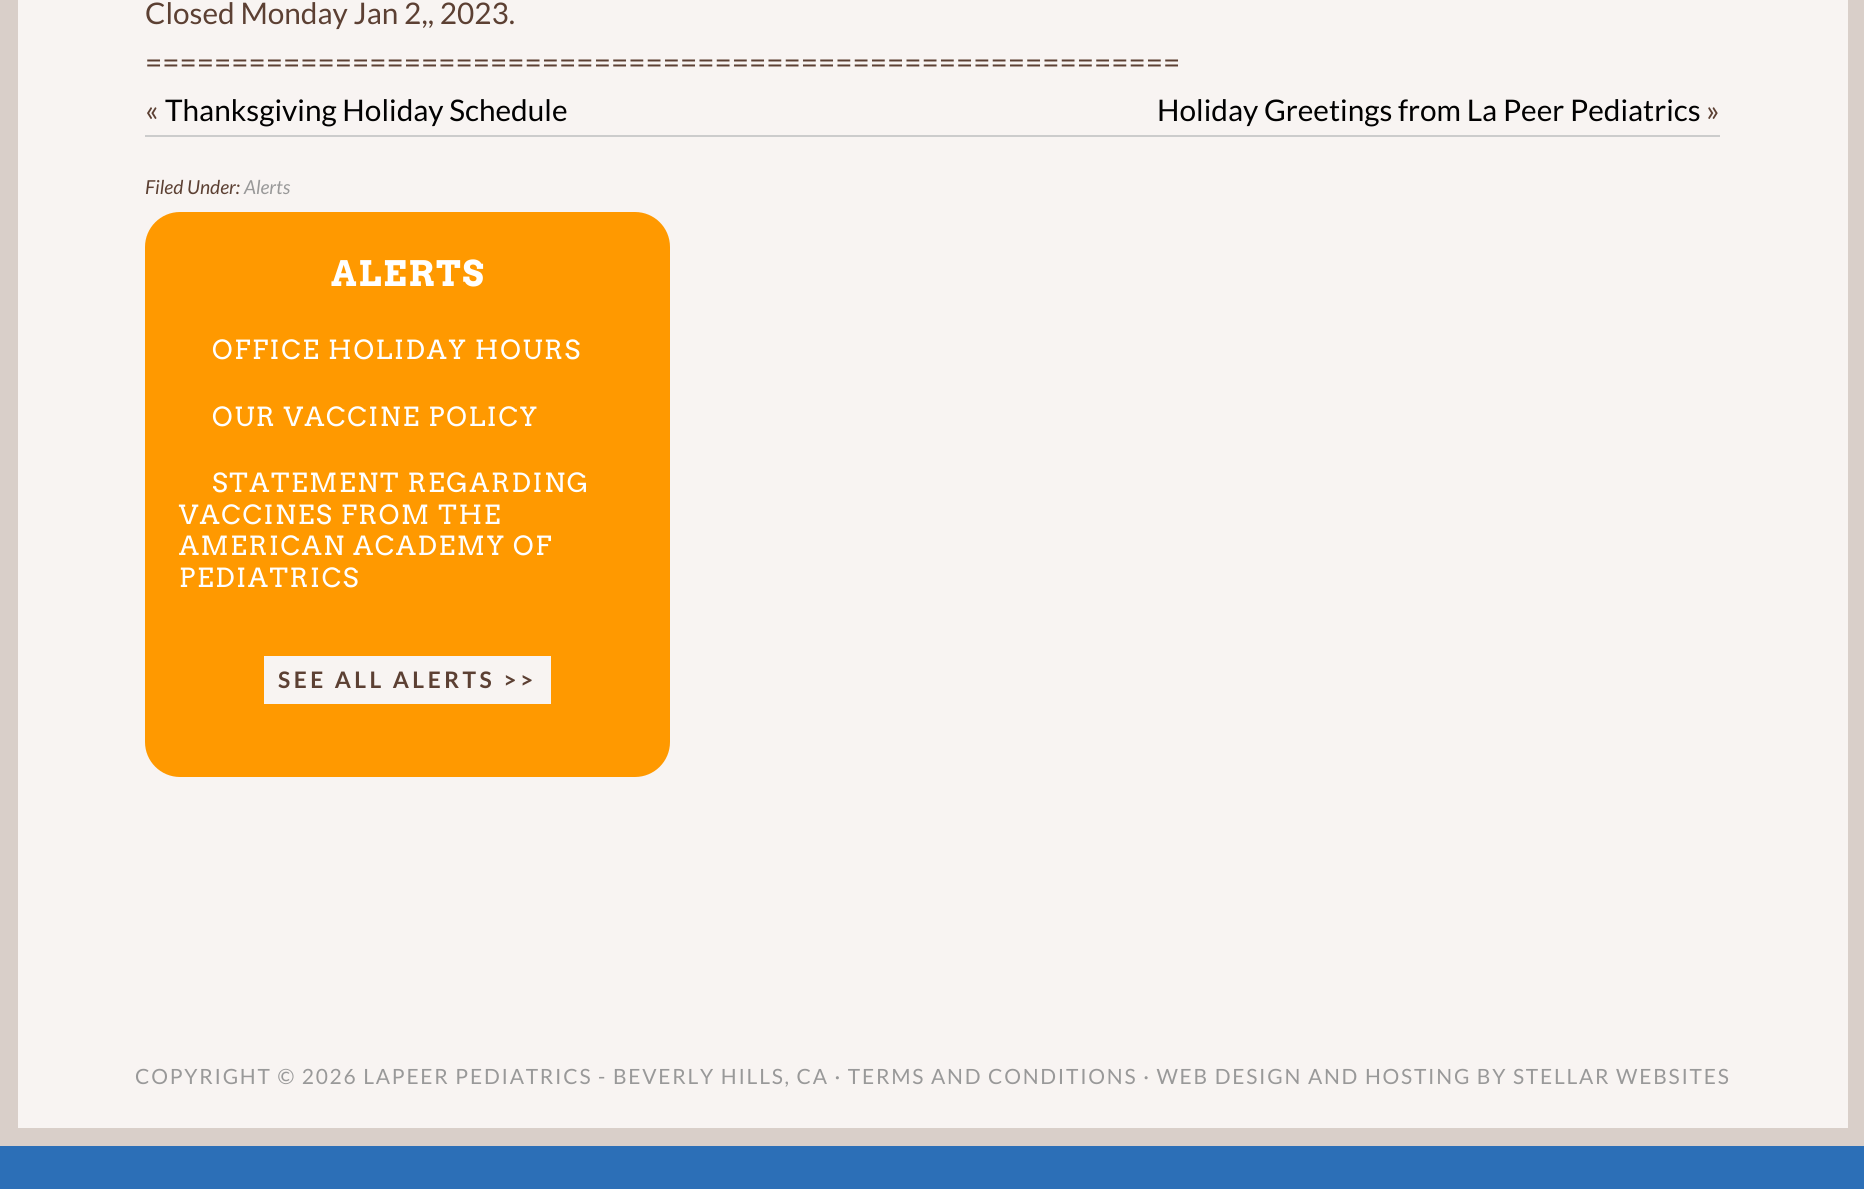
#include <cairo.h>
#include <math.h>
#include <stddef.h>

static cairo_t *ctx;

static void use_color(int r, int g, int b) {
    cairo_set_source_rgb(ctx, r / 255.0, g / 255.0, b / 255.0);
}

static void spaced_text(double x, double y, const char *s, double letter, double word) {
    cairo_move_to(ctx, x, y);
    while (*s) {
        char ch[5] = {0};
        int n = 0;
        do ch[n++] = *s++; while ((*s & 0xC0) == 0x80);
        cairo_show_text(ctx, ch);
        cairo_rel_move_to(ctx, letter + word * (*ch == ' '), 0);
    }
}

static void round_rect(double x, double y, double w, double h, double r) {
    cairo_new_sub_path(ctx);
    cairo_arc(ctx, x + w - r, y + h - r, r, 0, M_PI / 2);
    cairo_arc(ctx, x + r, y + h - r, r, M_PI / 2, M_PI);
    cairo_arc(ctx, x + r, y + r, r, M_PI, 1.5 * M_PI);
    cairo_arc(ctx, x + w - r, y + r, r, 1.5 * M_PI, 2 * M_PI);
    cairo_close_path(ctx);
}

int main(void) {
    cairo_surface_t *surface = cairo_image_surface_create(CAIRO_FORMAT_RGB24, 1864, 1189);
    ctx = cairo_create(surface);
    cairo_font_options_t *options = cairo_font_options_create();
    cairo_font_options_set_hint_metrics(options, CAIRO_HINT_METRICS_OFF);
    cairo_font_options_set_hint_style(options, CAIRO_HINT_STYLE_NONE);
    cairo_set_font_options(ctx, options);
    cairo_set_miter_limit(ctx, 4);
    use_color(44, 111, 183);
    cairo_paint(ctx);
    use_color(248, 244, 242);
    cairo_rectangle(ctx, 9, -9, 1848, 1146);
    cairo_fill_preserve(ctx);
    use_color(217, 207, 201);
    cairo_set_line_width(ctx, 18);
    cairo_stroke(ctx);
    cairo_select_font_face(ctx, "Lato", CAIRO_FONT_SLANT_NORMAL, CAIRO_FONT_WEIGHT_NORMAL);
    cairo_set_font_size(ctx, 29.75);
    use_color(92, 64, 51);
    cairo_move_to(ctx, 145, 24);
    cairo_show_text(ctx, "Closed Monday Jan 2,, 2023.");
    cairo_move_to(ctx, 145, 73);
    cairo_show_text(ctx, "============================================================");
    cairo_move_to(ctx, 145, 121);
    cairo_show_text(ctx, "«");
    use_color(1, 1, 1);
    cairo_move_to(ctx, 165, 121);
    cairo_show_text(ctx, "Thanksgiving Holiday Schedule");
    cairo_move_to(ctx, 1157, 121);
    cairo_show_text(ctx, "Holiday Greetings from La Peer Pediatrics");
    use_color(92, 64, 51);
    cairo_move_to(ctx, 1706, 121);
    cairo_show_text(ctx, "»");
    use_color(204, 204, 204);
    cairo_rectangle(ctx, 145, 135, 1575, 2);
    cairo_fill(ctx);
    cairo_select_font_face(ctx, "Lato", CAIRO_FONT_SLANT_ITALIC, CAIRO_FONT_WEIGHT_NORMAL);
    cairo_set_font_size(ctx, 19.25);
    use_color(92, 64, 51);
    cairo_move_to(ctx, 145, 194);
    cairo_show_text(ctx, "Filed Under:");
    use_color(153, 153, 153);
    cairo_move_to(ctx, 244, 194);
    cairo_show_text(ctx, "Alerts");
    use_color(255, 153, 0);
    round_rect(145, 212, 525, 565, 35);
    cairo_fill(ctx);
    cairo_select_font_face(ctx, "Arvo", CAIRO_FONT_SLANT_NORMAL, CAIRO_FONT_WEIGHT_BOLD);
    cairo_set_font_size(ctx, 35);
    use_color(255, 255, 255);
    spaced_text(331, 286, "ALERTS", 1.75, 0);
    cairo_select_font_face(ctx, "Arvo", CAIRO_FONT_SLANT_NORMAL, CAIRO_FONT_WEIGHT_NORMAL);
    cairo_set_font_size(ctx, 26.25);
    spaced_text(212, 359, "OFFICE HOLIDAY HOURS", 1.75, 0);
    spaced_text(212, 426, "OUR VACCINE POLICY", 1.75, 0);
    spaced_text(212, 492, "STATEMENT REGARDING", 1.75, 0);
    spaced_text(179, 524, "VACCINES FROM THE", 1.75, 0);
    spaced_text(179, 555, "AMERICAN ACADEMY OF", 1.75, 0);
    spaced_text(179, 587, "PEDIATRICS", 1.75, 0);
    use_color(248, 244, 242);
    cairo_rectangle(ctx, 264, 656, 287, 48);
    cairo_fill(ctx);
    cairo_select_font_face(ctx, "Lato", CAIRO_FONT_SLANT_NORMAL, CAIRO_FONT_WEIGHT_BOLD);
    cairo_set_font_size(ctx, 22.75);
    use_color(92, 64, 51);
    spaced_text(278, 688, "SEE ALL ALERTS >>", 3.5, 0);
    cairo_select_font_face(ctx, "Lato", CAIRO_FONT_SLANT_NORMAL, CAIRO_FONT_WEIGHT_NORMAL);
    cairo_set_font_size(ctx, 21);
    use_color(153, 153, 153);
    spaced_text(135, 1084, "COPYRIGHT © 2026 LAPEER PEDIATRICS - BEVERLY HILLS, CA · TERMS AND CONDITIONS · WEB DESIGN AND HOSTING BY STELLAR WEBSITES", 1.75, 0);
    cairo_surface_write_to_png(surface, "result.png");
    cairo_font_options_destroy(options);
    cairo_destroy(ctx);
    cairo_surface_destroy(surface);
    return 0;
}
